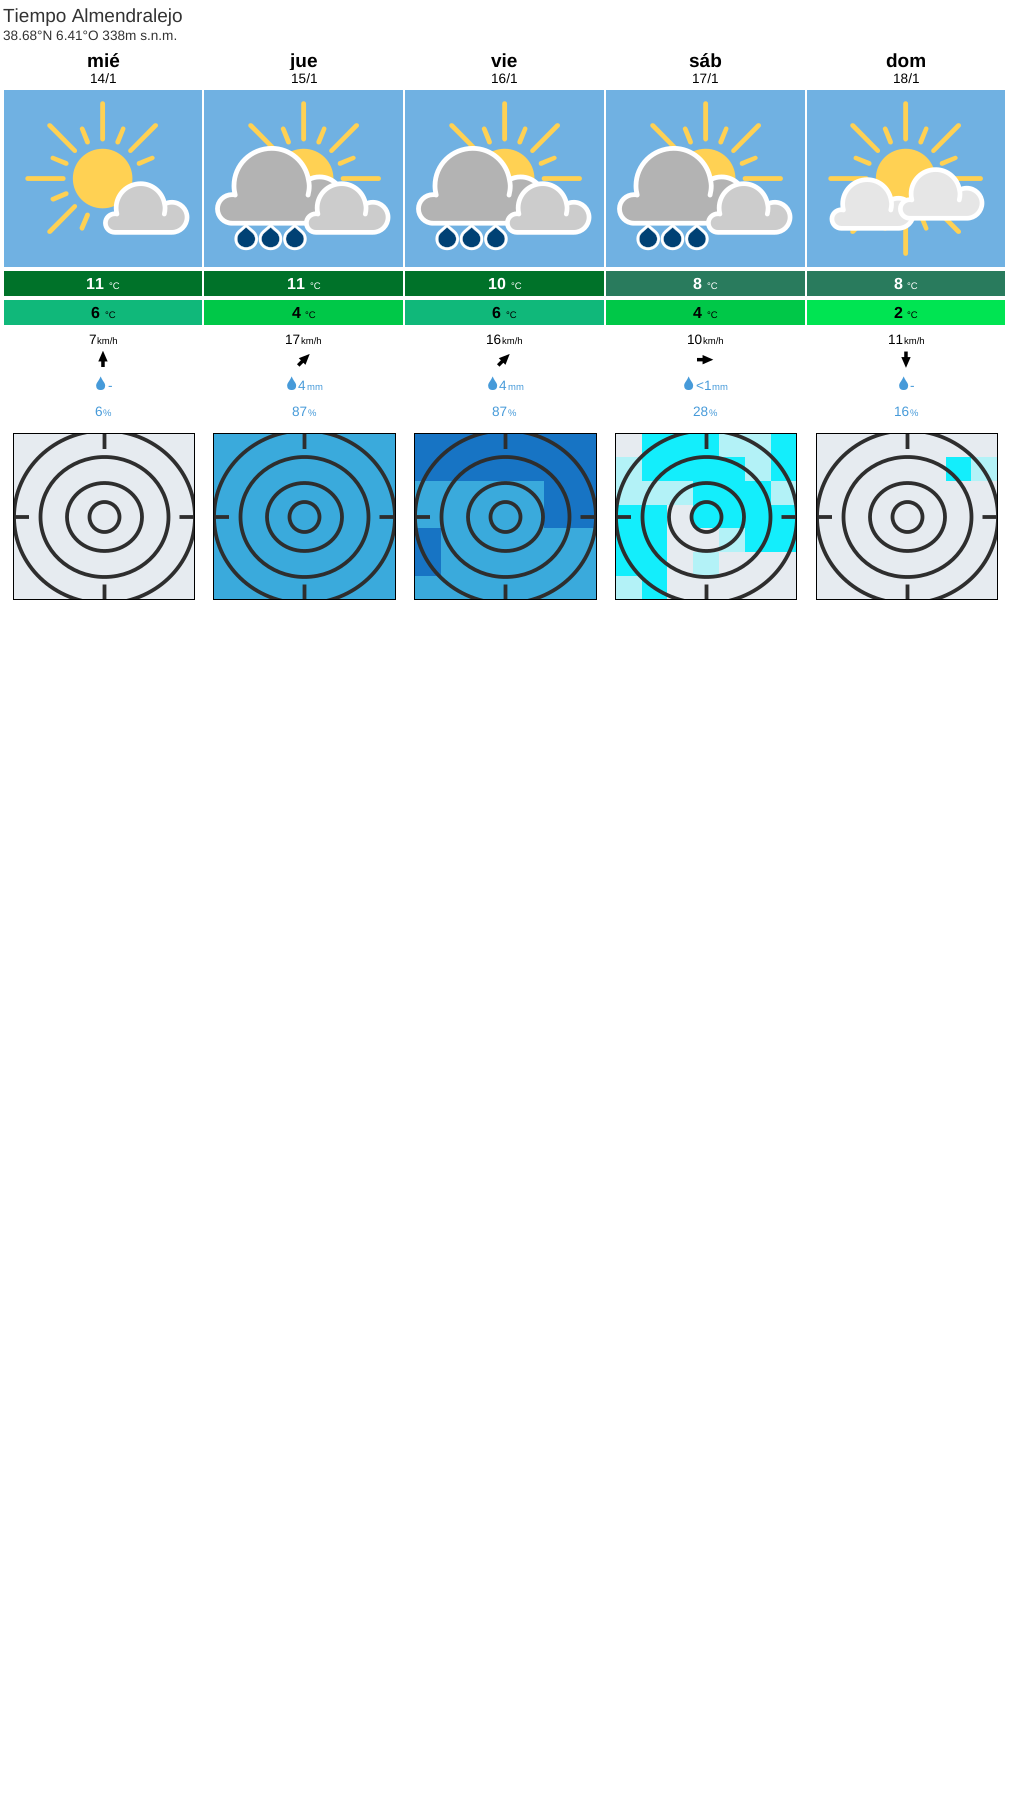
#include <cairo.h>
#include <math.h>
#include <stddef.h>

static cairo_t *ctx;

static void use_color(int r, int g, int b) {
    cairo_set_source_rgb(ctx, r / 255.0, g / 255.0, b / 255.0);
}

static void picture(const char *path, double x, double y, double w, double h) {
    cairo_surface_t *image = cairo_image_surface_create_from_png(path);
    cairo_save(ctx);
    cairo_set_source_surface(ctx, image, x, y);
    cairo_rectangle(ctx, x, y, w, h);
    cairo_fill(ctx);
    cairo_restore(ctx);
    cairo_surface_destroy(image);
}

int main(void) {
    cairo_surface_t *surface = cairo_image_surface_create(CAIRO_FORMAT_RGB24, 1009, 1793);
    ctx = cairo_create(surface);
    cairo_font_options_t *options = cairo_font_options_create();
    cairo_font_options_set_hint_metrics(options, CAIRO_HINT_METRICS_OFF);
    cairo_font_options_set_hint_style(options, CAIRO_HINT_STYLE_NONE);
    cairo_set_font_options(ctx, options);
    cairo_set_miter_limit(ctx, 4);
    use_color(255, 255, 255);
    cairo_paint(ctx);
    cairo_select_font_face(ctx, "Liberation Sans", CAIRO_FONT_SLANT_NORMAL, CAIRO_FONT_WEIGHT_NORMAL);
    cairo_set_font_size(ctx, 19);
    use_color(51, 51, 51);
    cairo_move_to(ctx, 3, 22);
    cairo_show_text(ctx, "Tiempo Almendralejo");
    cairo_set_font_size(ctx, 13.6);
    cairo_move_to(ctx, 3, 40);
    cairo_show_text(ctx, "38.68°N 6.41°O 338m s.n.m.");
    cairo_select_font_face(ctx, "Liberation Sans", CAIRO_FONT_SLANT_NORMAL, CAIRO_FONT_WEIGHT_BOLD);
    cairo_set_font_size(ctx, 19);
    use_color(0, 0, 0);
    cairo_move_to(ctx, 87, 67);
    cairo_show_text(ctx, "mié");
    cairo_select_font_face(ctx, "Liberation Sans", CAIRO_FONT_SLANT_NORMAL, CAIRO_FONT_WEIGHT_NORMAL);
    cairo_set_font_size(ctx, 13.6);
    cairo_move_to(ctx, 90, 83);
    cairo_show_text(ctx, "14/1");
    use_color(112, 177, 226);
    cairo_rectangle(ctx, 4, 90, 198, 177);
    cairo_fill(ctx);
    picture("img1.png", 25, 101, 165, 134);
    use_color(0, 114, 41);
    cairo_rectangle(ctx, 4, 271, 198, 25);
    cairo_fill(ctx);
    cairo_select_font_face(ctx, "Liberation Sans", CAIRO_FONT_SLANT_NORMAL, CAIRO_FONT_WEIGHT_BOLD);
    cairo_set_font_size(ctx, 16);
    use_color(255, 255, 255);
    cairo_move_to(ctx, 86, 289);
    cairo_show_text(ctx, "11");
    cairo_select_font_face(ctx, "Liberation Sans", CAIRO_FONT_SLANT_NORMAL, CAIRO_FONT_WEIGHT_NORMAL);
    cairo_set_font_size(ctx, 9.5);
    cairo_move_to(ctx, 109, 289);
    cairo_show_text(ctx, "°C");
    use_color(16, 184, 122);
    cairo_rectangle(ctx, 4, 300, 198, 25);
    cairo_fill(ctx);
    cairo_select_font_face(ctx, "Liberation Sans", CAIRO_FONT_SLANT_NORMAL, CAIRO_FONT_WEIGHT_BOLD);
    cairo_set_font_size(ctx, 16);
    use_color(0, 0, 0);
    cairo_move_to(ctx, 91, 318);
    cairo_show_text(ctx, "6");
    cairo_select_font_face(ctx, "Liberation Sans", CAIRO_FONT_SLANT_NORMAL, CAIRO_FONT_WEIGHT_NORMAL);
    cairo_set_font_size(ctx, 9.5);
    cairo_move_to(ctx, 105, 318);
    cairo_show_text(ctx, "°C");
    cairo_set_font_size(ctx, 13.6);
    cairo_move_to(ctx, 89, 344);
    cairo_show_text(ctx, "7");
    cairo_set_font_size(ctx, 9.5);
    cairo_move_to(ctx, 97, 344);
    cairo_show_text(ctx, "km/h");
    picture("img2.png", 98, 351, 10, 16);
    picture("img3.png", 96, 376, 10, 14);
    cairo_set_font_size(ctx, 13.6);
    use_color(70, 154, 217);
    cairo_move_to(ctx, 108, 390);
    cairo_show_text(ctx, "-");
    cairo_move_to(ctx, 95, 416);
    cairo_show_text(ctx, "6");
    cairo_set_font_size(ctx, 9.5);
    cairo_move_to(ctx, 103, 416);
    cairo_show_text(ctx, "%");
    use_color(230, 235, 240);
    cairo_rectangle(ctx, 13.5, 433.5, 181, 166);
    cairo_fill_preserve(ctx);
    use_color(0, 0, 0);
    cairo_set_line_width(ctx, 1);
    cairo_stroke(ctx);
    cairo_arc(ctx, 104.5, 517, 15, 0, 2 * M_PI);
    use_color(46, 46, 46);
    cairo_set_line_width(ctx, 3.8);
    cairo_stroke(ctx);
    cairo_new_path(ctx);
    cairo_move_to(ctx, 104.5, 483);
    cairo_curve_to(ctx, 125, 483, 142, 498, 142, 517);
    cairo_curve_to(ctx, 142, 536, 125, 551, 104.5, 551);
    cairo_curve_to(ctx, 84, 551, 67, 536, 67, 517);
    cairo_curve_to(ctx, 67, 498, 84, 483, 104.5, 483);
    cairo_close_path(ctx);
    cairo_stroke(ctx);
    cairo_new_path(ctx);
    cairo_move_to(ctx, 104.5, 457);
    cairo_curve_to(ctx, 140, 457, 168.5, 484, 168.5, 517);
    cairo_curve_to(ctx, 168.5, 550, 140, 577, 104.5, 577);
    cairo_curve_to(ctx, 69, 577, 40.5, 550, 40.5, 517);
    cairo_curve_to(ctx, 40.5, 484, 69, 457, 104.5, 457);
    cairo_close_path(ctx);
    cairo_stroke(ctx);
    cairo_save(ctx);
    cairo_rectangle(ctx, 14, 434, 180, 165);
    cairo_clip(ctx);
    cairo_new_path(ctx);
    cairo_move_to(ctx, 104.5, 430.5);
    cairo_curve_to(ctx, 154.5, 430.5, 195, 469, 195, 517);
    cairo_curve_to(ctx, 195, 565, 154.5, 603.5, 104.5, 603.5);
    cairo_curve_to(ctx, 54.5, 603.5, 14, 565, 14, 517);
    cairo_curve_to(ctx, 14, 469, 54.5, 430.5, 104.5, 430.5);
    cairo_close_path(ctx);
    cairo_stroke(ctx);
    cairo_new_path(ctx);
    cairo_move_to(ctx, 14, 517);
    cairo_line_to(ctx, 29, 517);
    cairo_move_to(ctx, 179.5, 517);
    cairo_line_to(ctx, 194.5, 517);
    cairo_move_to(ctx, 104.5, 434);
    cairo_line_to(ctx, 104.5, 449);
    cairo_move_to(ctx, 104.5, 599.5);
    cairo_line_to(ctx, 104.5, 584.5);
    cairo_stroke(ctx);
    cairo_restore(ctx);
    cairo_save(ctx);
    cairo_rectangle(ctx, 204, 46, 199, 24);
    cairo_clip(ctx);
    cairo_select_font_face(ctx, "Liberation Sans", CAIRO_FONT_SLANT_NORMAL, CAIRO_FONT_WEIGHT_BOLD);
    cairo_set_font_size(ctx, 19);
    use_color(0, 0, 0);
    cairo_move_to(ctx, 290, 67);
    cairo_show_text(ctx, "jue");
    cairo_restore(ctx);
    cairo_set_font_size(ctx, 13.6);
    use_color(0, 0, 0);
    cairo_move_to(ctx, 291, 83);
    cairo_show_text(ctx, "15/1");
    use_color(112, 177, 226);
    cairo_rectangle(ctx, 204, 90, 199, 177);
    cairo_fill(ctx);
    picture("img4.png", 215, 101, 176, 150);
    use_color(0, 114, 41);
    cairo_rectangle(ctx, 204, 271, 199, 25);
    cairo_fill(ctx);
    cairo_select_font_face(ctx, "Liberation Sans", CAIRO_FONT_SLANT_NORMAL, CAIRO_FONT_WEIGHT_BOLD);
    cairo_set_font_size(ctx, 16);
    use_color(255, 255, 255);
    cairo_move_to(ctx, 287, 289);
    cairo_show_text(ctx, "11");
    cairo_select_font_face(ctx, "Liberation Sans", CAIRO_FONT_SLANT_NORMAL, CAIRO_FONT_WEIGHT_NORMAL);
    cairo_set_font_size(ctx, 9.5);
    cairo_move_to(ctx, 310, 289);
    cairo_show_text(ctx, "°C");
    use_color(0, 200, 72);
    cairo_rectangle(ctx, 204, 300, 199, 25);
    cairo_fill(ctx);
    cairo_select_font_face(ctx, "Liberation Sans", CAIRO_FONT_SLANT_NORMAL, CAIRO_FONT_WEIGHT_BOLD);
    cairo_set_font_size(ctx, 16);
    use_color(0, 0, 0);
    cairo_move_to(ctx, 292, 318);
    cairo_show_text(ctx, "4");
    cairo_select_font_face(ctx, "Liberation Sans", CAIRO_FONT_SLANT_NORMAL, CAIRO_FONT_WEIGHT_NORMAL);
    cairo_set_font_size(ctx, 9.5);
    cairo_move_to(ctx, 305, 318);
    cairo_show_text(ctx, "°C");
    cairo_set_font_size(ctx, 13.6);
    cairo_move_to(ctx, 285, 344);
    cairo_show_text(ctx, "17");
    cairo_set_font_size(ctx, 9.5);
    cairo_move_to(ctx, 301, 344);
    cairo_show_text(ctx, "km/h");
    picture("img5.png", 297, 354, 13, 13);
    picture("img3.png", 287, 376, 10, 14);
    cairo_set_font_size(ctx, 13.6);
    use_color(70, 154, 217);
    cairo_move_to(ctx, 298, 390);
    cairo_show_text(ctx, "4");
    cairo_set_font_size(ctx, 9.5);
    cairo_move_to(ctx, 307, 390);
    cairo_show_text(ctx, "mm");
    cairo_set_font_size(ctx, 13.6);
    cairo_move_to(ctx, 292, 416);
    cairo_show_text(ctx, "87");
    cairo_set_font_size(ctx, 9.5);
    cairo_move_to(ctx, 308, 416);
    cairo_show_text(ctx, "%");
    cairo_rectangle(ctx, 213.5, 433.5, 182, 166);
    use_color(0, 0, 0);
    cairo_set_line_width(ctx, 1);
    cairo_stroke(ctx);
    use_color(58, 170, 220);
    cairo_rectangle(ctx, 214, 434, 181, 23);
    cairo_fill(ctx);
    cairo_rectangle(ctx, 214, 457, 78, 24);
    cairo_fill(ctx);
    cairo_rectangle(ctx, 292, 458, 26, 23);
    cairo_fill(ctx);
    cairo_rectangle(ctx, 318, 457, 77, 24);
    cairo_fill(ctx);
    cairo_rectangle(ctx, 214, 481, 181, 24);
    cairo_fill(ctx);
    cairo_rectangle(ctx, 215, 505, 25, 23);
    cairo_fill(ctx);
    cairo_rectangle(ctx, 242, 505, 125, 23);
    cairo_fill(ctx);
    cairo_rectangle(ctx, 369, 505, 25, 23);
    cairo_fill(ctx);
    cairo_rectangle(ctx, 214, 528, 181, 24);
    cairo_fill(ctx);
    cairo_rectangle(ctx, 214, 552, 181, 24);
    cairo_fill(ctx);
    cairo_rectangle(ctx, 214, 576, 78, 23);
    cairo_fill(ctx);
    cairo_rectangle(ctx, 292, 577, 26, 22);
    cairo_fill(ctx);
    cairo_rectangle(ctx, 318, 576, 77, 23);
    cairo_fill(ctx);
    cairo_arc(ctx, 304.5, 517, 15, 0, 2 * M_PI);
    use_color(46, 46, 46);
    cairo_set_line_width(ctx, 3.8);
    cairo_stroke(ctx);
    cairo_new_path(ctx);
    cairo_move_to(ctx, 304.5, 483);
    cairo_curve_to(ctx, 325, 483, 342, 498, 342, 517);
    cairo_curve_to(ctx, 342, 536, 325, 551, 304.5, 551);
    cairo_curve_to(ctx, 284, 551, 267, 536, 267, 517);
    cairo_curve_to(ctx, 267, 498, 284, 483, 304.5, 483);
    cairo_close_path(ctx);
    cairo_stroke(ctx);
    cairo_new_path(ctx);
    cairo_move_to(ctx, 304.5, 457);
    cairo_curve_to(ctx, 340, 457, 368.5, 484, 368.5, 517);
    cairo_curve_to(ctx, 368.5, 550, 340, 577, 304.5, 577);
    cairo_curve_to(ctx, 269, 577, 240.5, 550, 240.5, 517);
    cairo_curve_to(ctx, 240.5, 484, 269, 457, 304.5, 457);
    cairo_close_path(ctx);
    cairo_stroke(ctx);
    cairo_save(ctx);
    cairo_rectangle(ctx, 214, 434, 181, 165);
    cairo_clip(ctx);
    cairo_new_path(ctx);
    cairo_move_to(ctx, 304.5, 430.5);
    cairo_curve_to(ctx, 354.5, 430.5, 395, 469, 395, 517);
    cairo_curve_to(ctx, 395, 565, 354.5, 603.5, 304.5, 603.5);
    cairo_curve_to(ctx, 254.5, 603.5, 214, 565, 214, 517);
    cairo_curve_to(ctx, 214, 469, 254.5, 430.5, 304.5, 430.5);
    cairo_close_path(ctx);
    cairo_stroke(ctx);
    cairo_new_path(ctx);
    cairo_move_to(ctx, 214, 517);
    cairo_line_to(ctx, 229, 517);
    cairo_move_to(ctx, 379.5, 517);
    cairo_line_to(ctx, 394.5, 517);
    cairo_move_to(ctx, 304.5, 434);
    cairo_line_to(ctx, 304.5, 449);
    cairo_move_to(ctx, 304.5, 599.5);
    cairo_line_to(ctx, 304.5, 584.5);
    cairo_stroke(ctx);
    cairo_restore(ctx);
    cairo_select_font_face(ctx, "Liberation Sans", CAIRO_FONT_SLANT_NORMAL, CAIRO_FONT_WEIGHT_BOLD);
    cairo_set_font_size(ctx, 19);
    use_color(0, 0, 0);
    cairo_move_to(ctx, 491, 67);
    cairo_show_text(ctx, "vie");
    cairo_select_font_face(ctx, "Liberation Sans", CAIRO_FONT_SLANT_NORMAL, CAIRO_FONT_WEIGHT_NORMAL);
    cairo_set_font_size(ctx, 13.6);
    cairo_move_to(ctx, 491, 83);
    cairo_show_text(ctx, "16/1");
    use_color(112, 177, 226);
    cairo_rectangle(ctx, 405, 90, 199, 177);
    cairo_fill(ctx);
    picture("img4.png", 416, 101, 176, 150);
    use_color(0, 114, 41);
    cairo_rectangle(ctx, 405, 271, 199, 25);
    cairo_fill(ctx);
    cairo_select_font_face(ctx, "Liberation Sans", CAIRO_FONT_SLANT_NORMAL, CAIRO_FONT_WEIGHT_BOLD);
    cairo_set_font_size(ctx, 16);
    use_color(255, 255, 255);
    cairo_move_to(ctx, 488, 289);
    cairo_show_text(ctx, "10");
    cairo_select_font_face(ctx, "Liberation Sans", CAIRO_FONT_SLANT_NORMAL, CAIRO_FONT_WEIGHT_NORMAL);
    cairo_set_font_size(ctx, 9.5);
    cairo_move_to(ctx, 511, 289);
    cairo_show_text(ctx, "°C");
    use_color(16, 184, 122);
    cairo_rectangle(ctx, 405, 300, 199, 25);
    cairo_fill(ctx);
    cairo_select_font_face(ctx, "Liberation Sans", CAIRO_FONT_SLANT_NORMAL, CAIRO_FONT_WEIGHT_BOLD);
    cairo_set_font_size(ctx, 16);
    use_color(0, 0, 0);
    cairo_move_to(ctx, 492, 318);
    cairo_show_text(ctx, "6");
    cairo_select_font_face(ctx, "Liberation Sans", CAIRO_FONT_SLANT_NORMAL, CAIRO_FONT_WEIGHT_NORMAL);
    cairo_set_font_size(ctx, 9.5);
    cairo_move_to(ctx, 506, 318);
    cairo_show_text(ctx, "°C");
    cairo_set_font_size(ctx, 13.6);
    cairo_move_to(ctx, 486, 344);
    cairo_show_text(ctx, "16");
    cairo_set_font_size(ctx, 9.5);
    cairo_move_to(ctx, 502, 344);
    cairo_show_text(ctx, "km/h");
    picture("img5.png", 497, 354, 13, 13);
    picture("img3.png", 488, 376, 10, 14);
    cairo_set_font_size(ctx, 13.6);
    use_color(70, 154, 217);
    cairo_move_to(ctx, 499, 390);
    cairo_show_text(ctx, "4");
    cairo_set_font_size(ctx, 9.5);
    cairo_move_to(ctx, 508, 390);
    cairo_show_text(ctx, "mm");
    cairo_set_font_size(ctx, 13.6);
    cairo_move_to(ctx, 492, 416);
    cairo_show_text(ctx, "87");
    cairo_set_font_size(ctx, 9.5);
    cairo_move_to(ctx, 508, 416);
    cairo_show_text(ctx, "%");
    cairo_rectangle(ctx, 414.5, 433.5, 182, 166);
    use_color(0, 0, 0);
    cairo_set_line_width(ctx, 1);
    cairo_stroke(ctx);
    use_color(23, 116, 196);
    cairo_rectangle(ctx, 415, 434, 181, 23);
    cairo_fill(ctx);
    cairo_rectangle(ctx, 415, 457, 78, 24);
    cairo_fill(ctx);
    cairo_rectangle(ctx, 493, 458, 25, 23);
    cairo_fill(ctx);
    cairo_rectangle(ctx, 518, 457, 78, 24);
    cairo_fill(ctx);
    use_color(58, 170, 220);
    cairo_rectangle(ctx, 415, 481, 129, 24);
    cairo_fill(ctx);
    use_color(23, 116, 196);
    cairo_rectangle(ctx, 544, 481, 52, 24);
    cairo_fill(ctx);
    use_color(58, 170, 220);
    cairo_rectangle(ctx, 416, 505, 25, 23);
    cairo_fill(ctx);
    cairo_rectangle(ctx, 443, 505, 101, 23);
    cairo_fill(ctx);
    use_color(23, 116, 196);
    cairo_rectangle(ctx, 544, 505, 24, 23);
    cairo_fill(ctx);
    cairo_rectangle(ctx, 570, 505, 25, 23);
    cairo_fill(ctx);
    cairo_rectangle(ctx, 415, 528, 26, 48);
    cairo_fill(ctx);
    use_color(58, 170, 220);
    cairo_rectangle(ctx, 441, 528, 155, 24);
    cairo_fill(ctx);
    cairo_rectangle(ctx, 441, 552, 155, 24);
    cairo_fill(ctx);
    cairo_rectangle(ctx, 415, 576, 78, 23);
    cairo_fill(ctx);
    cairo_rectangle(ctx, 493, 577, 25, 22);
    cairo_fill(ctx);
    cairo_rectangle(ctx, 518, 576, 78, 23);
    cairo_fill(ctx);
    cairo_arc(ctx, 505.5, 517, 15, 0, 2 * M_PI);
    use_color(46, 46, 46);
    cairo_set_line_width(ctx, 3.8);
    cairo_stroke(ctx);
    cairo_new_path(ctx);
    cairo_move_to(ctx, 505.5, 483);
    cairo_curve_to(ctx, 526, 483, 543, 498, 543, 517);
    cairo_curve_to(ctx, 543, 536, 526, 551, 505.5, 551);
    cairo_curve_to(ctx, 485, 551, 468, 536, 468, 517);
    cairo_curve_to(ctx, 468, 498, 485, 483, 505.5, 483);
    cairo_close_path(ctx);
    cairo_stroke(ctx);
    cairo_new_path(ctx);
    cairo_move_to(ctx, 505.5, 457);
    cairo_curve_to(ctx, 541, 457, 569.5, 484, 569.5, 517);
    cairo_curve_to(ctx, 569.5, 550, 541, 577, 505.5, 577);
    cairo_curve_to(ctx, 470, 577, 441.5, 550, 441.5, 517);
    cairo_curve_to(ctx, 441.5, 484, 470, 457, 505.5, 457);
    cairo_close_path(ctx);
    cairo_stroke(ctx);
    cairo_save(ctx);
    cairo_rectangle(ctx, 415, 434, 181, 165);
    cairo_clip(ctx);
    cairo_new_path(ctx);
    cairo_move_to(ctx, 505.5, 430.5);
    cairo_curve_to(ctx, 555.5, 430.5, 596, 469, 596, 517);
    cairo_curve_to(ctx, 596, 565, 555.5, 603.5, 505.5, 603.5);
    cairo_curve_to(ctx, 455.5, 603.5, 415, 565, 415, 517);
    cairo_curve_to(ctx, 415, 469, 455.5, 430.5, 505.5, 430.5);
    cairo_close_path(ctx);
    cairo_stroke(ctx);
    cairo_new_path(ctx);
    cairo_move_to(ctx, 415, 517);
    cairo_line_to(ctx, 430, 517);
    cairo_move_to(ctx, 580.5, 517);
    cairo_line_to(ctx, 595.5, 517);
    cairo_move_to(ctx, 505.5, 434);
    cairo_line_to(ctx, 505.5, 449);
    cairo_move_to(ctx, 505.5, 599.5);
    cairo_line_to(ctx, 505.5, 584.5);
    cairo_stroke(ctx);
    cairo_restore(ctx);
    cairo_select_font_face(ctx, "Liberation Sans", CAIRO_FONT_SLANT_NORMAL, CAIRO_FONT_WEIGHT_BOLD);
    cairo_set_font_size(ctx, 19);
    use_color(0, 0, 0);
    cairo_move_to(ctx, 689, 67);
    cairo_show_text(ctx, "sáb");
    cairo_select_font_face(ctx, "Liberation Sans", CAIRO_FONT_SLANT_NORMAL, CAIRO_FONT_WEIGHT_NORMAL);
    cairo_set_font_size(ctx, 13.6);
    cairo_move_to(ctx, 692, 83);
    cairo_show_text(ctx, "17/1");
    use_color(112, 177, 226);
    cairo_rectangle(ctx, 606, 90, 199, 177);
    cairo_fill(ctx);
    picture("img4.png", 617, 101, 176, 150);
    use_color(41, 123, 93);
    cairo_rectangle(ctx, 606, 271, 199, 25);
    cairo_fill(ctx);
    cairo_select_font_face(ctx, "Liberation Sans", CAIRO_FONT_SLANT_NORMAL, CAIRO_FONT_WEIGHT_BOLD);
    cairo_set_font_size(ctx, 16);
    use_color(255, 255, 255);
    cairo_move_to(ctx, 693, 289);
    cairo_show_text(ctx, "8");
    cairo_select_font_face(ctx, "Liberation Sans", CAIRO_FONT_SLANT_NORMAL, CAIRO_FONT_WEIGHT_NORMAL);
    cairo_set_font_size(ctx, 9.5);
    cairo_move_to(ctx, 707, 289);
    cairo_show_text(ctx, "°C");
    use_color(0, 200, 72);
    cairo_rectangle(ctx, 606, 300, 199, 25);
    cairo_fill(ctx);
    cairo_select_font_face(ctx, "Liberation Sans", CAIRO_FONT_SLANT_NORMAL, CAIRO_FONT_WEIGHT_BOLD);
    cairo_set_font_size(ctx, 16);
    use_color(0, 0, 0);
    cairo_move_to(ctx, 693, 318);
    cairo_show_text(ctx, "4");
    cairo_select_font_face(ctx, "Liberation Sans", CAIRO_FONT_SLANT_NORMAL, CAIRO_FONT_WEIGHT_NORMAL);
    cairo_set_font_size(ctx, 9.5);
    cairo_move_to(ctx, 707, 318);
    cairo_show_text(ctx, "°C");
    cairo_set_font_size(ctx, 13.6);
    cairo_move_to(ctx, 687, 344);
    cairo_show_text(ctx, "10");
    cairo_set_font_size(ctx, 9.5);
    cairo_move_to(ctx, 703, 344);
    cairo_show_text(ctx, "km/h");
    picture("img6.png", 697, 355, 17, 10);
    picture("img3.png", 684, 376, 10, 14);
    cairo_set_font_size(ctx, 13.6);
    use_color(70, 154, 217);
    cairo_move_to(ctx, 696, 390);
    cairo_show_text(ctx, "<1");
    cairo_set_font_size(ctx, 9.5);
    cairo_move_to(ctx, 712, 390);
    cairo_show_text(ctx, "mm");
    cairo_set_font_size(ctx, 13.6);
    cairo_move_to(ctx, 693, 416);
    cairo_show_text(ctx, "28");
    cairo_set_font_size(ctx, 9.5);
    cairo_move_to(ctx, 709, 416);
    cairo_show_text(ctx, "%");
    use_color(230, 235, 240);
    cairo_rectangle(ctx, 615.5, 433.5, 181, 166);
    cairo_fill_preserve(ctx);
    use_color(0, 0, 0);
    cairo_set_line_width(ctx, 1);
    cairo_stroke(ctx);
    use_color(19, 238, 252);
    cairo_rectangle(ctx, 642, 434, 77, 23);
    cairo_fill(ctx);
    use_color(179, 242, 247);
    cairo_rectangle(ctx, 719, 434, 52, 23);
    cairo_fill(ctx);
    use_color(19, 238, 252);
    cairo_rectangle(ctx, 771, 434, 25, 47);
    cairo_fill(ctx);
    use_color(179, 242, 247);
    cairo_rectangle(ctx, 616, 457, 26, 48);
    cairo_fill(ctx);
    use_color(19, 238, 252);
    cairo_rectangle(ctx, 642, 457, 51, 24);
    cairo_fill(ctx);
    cairo_rectangle(ctx, 693, 458, 26, 70);
    cairo_fill(ctx);
    cairo_rectangle(ctx, 719, 457, 26, 71);
    cairo_fill(ctx);
    use_color(179, 242, 247);
    cairo_rectangle(ctx, 745, 457, 26, 24);
    cairo_fill(ctx);
    cairo_rectangle(ctx, 642, 481, 51, 24);
    cairo_fill(ctx);
    use_color(19, 238, 252);
    cairo_rectangle(ctx, 745, 481, 26, 24);
    cairo_fill(ctx);
    use_color(179, 242, 247);
    cairo_rectangle(ctx, 771, 481, 25, 24);
    cairo_fill(ctx);
    use_color(19, 238, 252);
    cairo_rectangle(ctx, 617, 505, 25, 23);
    cairo_fill(ctx);
    cairo_rectangle(ctx, 644, 505, 23, 23);
    cairo_fill(ctx);
    cairo_rectangle(ctx, 745, 505, 24, 23);
    cairo_fill(ctx);
    cairo_rectangle(ctx, 771, 505, 25, 23);
    cairo_fill(ctx);
    cairo_rectangle(ctx, 616, 528, 51, 24);
    cairo_fill(ctx);
    use_color(179, 242, 247);
    cairo_rectangle(ctx, 719, 528, 26, 24);
    cairo_fill(ctx);
    use_color(19, 238, 252);
    cairo_rectangle(ctx, 745, 528, 51, 24);
    cairo_fill(ctx);
    cairo_rectangle(ctx, 616, 552, 51, 24);
    cairo_fill(ctx);
    use_color(179, 242, 247);
    cairo_rectangle(ctx, 693, 552, 26, 24);
    cairo_fill(ctx);
    cairo_rectangle(ctx, 616, 576, 26, 23);
    cairo_fill(ctx);
    use_color(19, 238, 252);
    cairo_rectangle(ctx, 642, 576, 25, 23);
    cairo_fill(ctx);
    cairo_arc(ctx, 706.5, 517, 15, 0, 2 * M_PI);
    use_color(46, 46, 46);
    cairo_set_line_width(ctx, 3.8);
    cairo_stroke(ctx);
    cairo_new_path(ctx);
    cairo_move_to(ctx, 706.5, 483);
    cairo_curve_to(ctx, 727, 483, 744, 498, 744, 517);
    cairo_curve_to(ctx, 744, 536, 727, 551, 706.5, 551);
    cairo_curve_to(ctx, 686, 551, 669, 536, 669, 517);
    cairo_curve_to(ctx, 669, 498, 686, 483, 706.5, 483);
    cairo_close_path(ctx);
    cairo_stroke(ctx);
    cairo_new_path(ctx);
    cairo_move_to(ctx, 706.5, 457);
    cairo_curve_to(ctx, 742, 457, 770.5, 484, 770.5, 517);
    cairo_curve_to(ctx, 770.5, 550, 742, 577, 706.5, 577);
    cairo_curve_to(ctx, 671, 577, 642.5, 550, 642.5, 517);
    cairo_curve_to(ctx, 642.5, 484, 671, 457, 706.5, 457);
    cairo_close_path(ctx);
    cairo_stroke(ctx);
    cairo_save(ctx);
    cairo_rectangle(ctx, 616, 434, 180, 165);
    cairo_clip(ctx);
    cairo_new_path(ctx);
    cairo_move_to(ctx, 706.5, 430.5);
    cairo_curve_to(ctx, 756.5, 430.5, 797, 469, 797, 517);
    cairo_curve_to(ctx, 797, 565, 756.5, 603.5, 706.5, 603.5);
    cairo_curve_to(ctx, 656.5, 603.5, 616, 565, 616, 517);
    cairo_curve_to(ctx, 616, 469, 656.5, 430.5, 706.5, 430.5);
    cairo_close_path(ctx);
    cairo_stroke(ctx);
    cairo_new_path(ctx);
    cairo_move_to(ctx, 616, 517);
    cairo_line_to(ctx, 631, 517);
    cairo_move_to(ctx, 781.5, 517);
    cairo_line_to(ctx, 796.5, 517);
    cairo_move_to(ctx, 706.5, 434);
    cairo_line_to(ctx, 706.5, 449);
    cairo_move_to(ctx, 706.5, 599.5);
    cairo_line_to(ctx, 706.5, 584.5);
    cairo_stroke(ctx);
    cairo_restore(ctx);
    cairo_select_font_face(ctx, "Liberation Sans", CAIRO_FONT_SLANT_NORMAL, CAIRO_FONT_WEIGHT_BOLD);
    cairo_set_font_size(ctx, 19);
    use_color(0, 0, 0);
    cairo_move_to(ctx, 886, 67);
    cairo_show_text(ctx, "dom");
    cairo_select_font_face(ctx, "Liberation Sans", CAIRO_FONT_SLANT_NORMAL, CAIRO_FONT_WEIGHT_NORMAL);
    cairo_set_font_size(ctx, 13.6);
    cairo_move_to(ctx, 893, 83);
    cairo_show_text(ctx, "18/1");
    use_color(112, 177, 226);
    cairo_rectangle(ctx, 807, 90, 198, 177);
    cairo_fill(ctx);
    picture("img7.png", 828, 101, 157, 155);
    use_color(41, 123, 93);
    cairo_rectangle(ctx, 807, 271, 198, 25);
    cairo_fill(ctx);
    cairo_select_font_face(ctx, "Liberation Sans", CAIRO_FONT_SLANT_NORMAL, CAIRO_FONT_WEIGHT_BOLD);
    cairo_set_font_size(ctx, 16);
    use_color(255, 255, 255);
    cairo_move_to(ctx, 894, 289);
    cairo_show_text(ctx, "8");
    cairo_select_font_face(ctx, "Liberation Sans", CAIRO_FONT_SLANT_NORMAL, CAIRO_FONT_WEIGHT_NORMAL);
    cairo_set_font_size(ctx, 9.5);
    cairo_move_to(ctx, 907, 289);
    cairo_show_text(ctx, "°C");
    use_color(0, 228, 82);
    cairo_rectangle(ctx, 807, 300, 198, 25);
    cairo_fill(ctx);
    cairo_select_font_face(ctx, "Liberation Sans", CAIRO_FONT_SLANT_NORMAL, CAIRO_FONT_WEIGHT_BOLD);
    cairo_set_font_size(ctx, 16);
    use_color(0, 0, 0);
    cairo_move_to(ctx, 894, 318);
    cairo_show_text(ctx, "2");
    cairo_select_font_face(ctx, "Liberation Sans", CAIRO_FONT_SLANT_NORMAL, CAIRO_FONT_WEIGHT_NORMAL);
    cairo_set_font_size(ctx, 9.5);
    cairo_move_to(ctx, 907, 318);
    cairo_show_text(ctx, "°C");
    cairo_set_font_size(ctx, 13.6);
    cairo_move_to(ctx, 888, 344);
    cairo_show_text(ctx, "11");
    cairo_set_font_size(ctx, 9.5);
    cairo_move_to(ctx, 904, 344);
    cairo_show_text(ctx, "km/h");
    picture("img8.png", 901, 351, 10, 17);
    picture("img3.png", 899, 376, 10, 14);
    cairo_set_font_size(ctx, 13.6);
    use_color(70, 154, 217);
    cairo_move_to(ctx, 910, 390);
    cairo_show_text(ctx, "-");
    cairo_move_to(ctx, 894, 416);
    cairo_show_text(ctx, "16");
    cairo_set_font_size(ctx, 9.5);
    cairo_move_to(ctx, 910, 416);
    cairo_show_text(ctx, "%");
    use_color(230, 235, 240);
    cairo_rectangle(ctx, 816.5, 433.5, 181, 166);
    cairo_fill_preserve(ctx);
    use_color(0, 0, 0);
    cairo_set_line_width(ctx, 1);
    cairo_stroke(ctx);
    cairo_arc(ctx, 907.5, 517, 15, 0, 2 * M_PI);
    use_color(46, 46, 46);
    cairo_set_line_width(ctx, 3.8);
    cairo_stroke(ctx);
    cairo_new_path(ctx);
    cairo_move_to(ctx, 907.5, 483);
    cairo_curve_to(ctx, 928, 483, 945, 498, 945, 517);
    cairo_curve_to(ctx, 945, 536, 928, 551, 907.5, 551);
    cairo_curve_to(ctx, 887, 551, 870, 536, 870, 517);
    cairo_curve_to(ctx, 870, 498, 887, 483, 907.5, 483);
    cairo_close_path(ctx);
    cairo_stroke(ctx);
    use_color(19, 238, 252);
    cairo_rectangle(ctx, 946, 457, 25, 24);
    cairo_fill(ctx);
    use_color(179, 242, 247);
    cairo_rectangle(ctx, 971, 457, 26, 24);
    cairo_fill(ctx);
    cairo_new_path(ctx);
    cairo_move_to(ctx, 907.5, 457);
    cairo_curve_to(ctx, 943, 457, 971.5, 484, 971.5, 517);
    cairo_curve_to(ctx, 971.5, 550, 943, 577, 907.5, 577);
    cairo_curve_to(ctx, 872, 577, 843.5, 550, 843.5, 517);
    cairo_curve_to(ctx, 843.5, 484, 872, 457, 907.5, 457);
    cairo_close_path(ctx);
    use_color(46, 46, 46);
    cairo_stroke(ctx);
    cairo_save(ctx);
    cairo_rectangle(ctx, 817, 434, 180, 165);
    cairo_clip(ctx);
    cairo_new_path(ctx);
    cairo_move_to(ctx, 907.5, 430.5);
    cairo_curve_to(ctx, 957.5, 430.5, 998, 469, 998, 517);
    cairo_curve_to(ctx, 998, 565, 957.5, 603.5, 907.5, 603.5);
    cairo_curve_to(ctx, 857.5, 603.5, 817, 565, 817, 517);
    cairo_curve_to(ctx, 817, 469, 857.5, 430.5, 907.5, 430.5);
    cairo_close_path(ctx);
    cairo_stroke(ctx);
    cairo_new_path(ctx);
    cairo_move_to(ctx, 817, 517);
    cairo_line_to(ctx, 832, 517);
    cairo_move_to(ctx, 982.5, 517);
    cairo_line_to(ctx, 997.5, 517);
    cairo_move_to(ctx, 907.5, 434);
    cairo_line_to(ctx, 907.5, 449);
    cairo_move_to(ctx, 907.5, 599.5);
    cairo_line_to(ctx, 907.5, 584.5);
    cairo_stroke(ctx);
    cairo_restore(ctx);
    cairo_surface_write_to_png(surface, "result.png");
    cairo_font_options_destroy(options);
    cairo_destroy(ctx);
    cairo_surface_destroy(surface);
    return 0;
}
